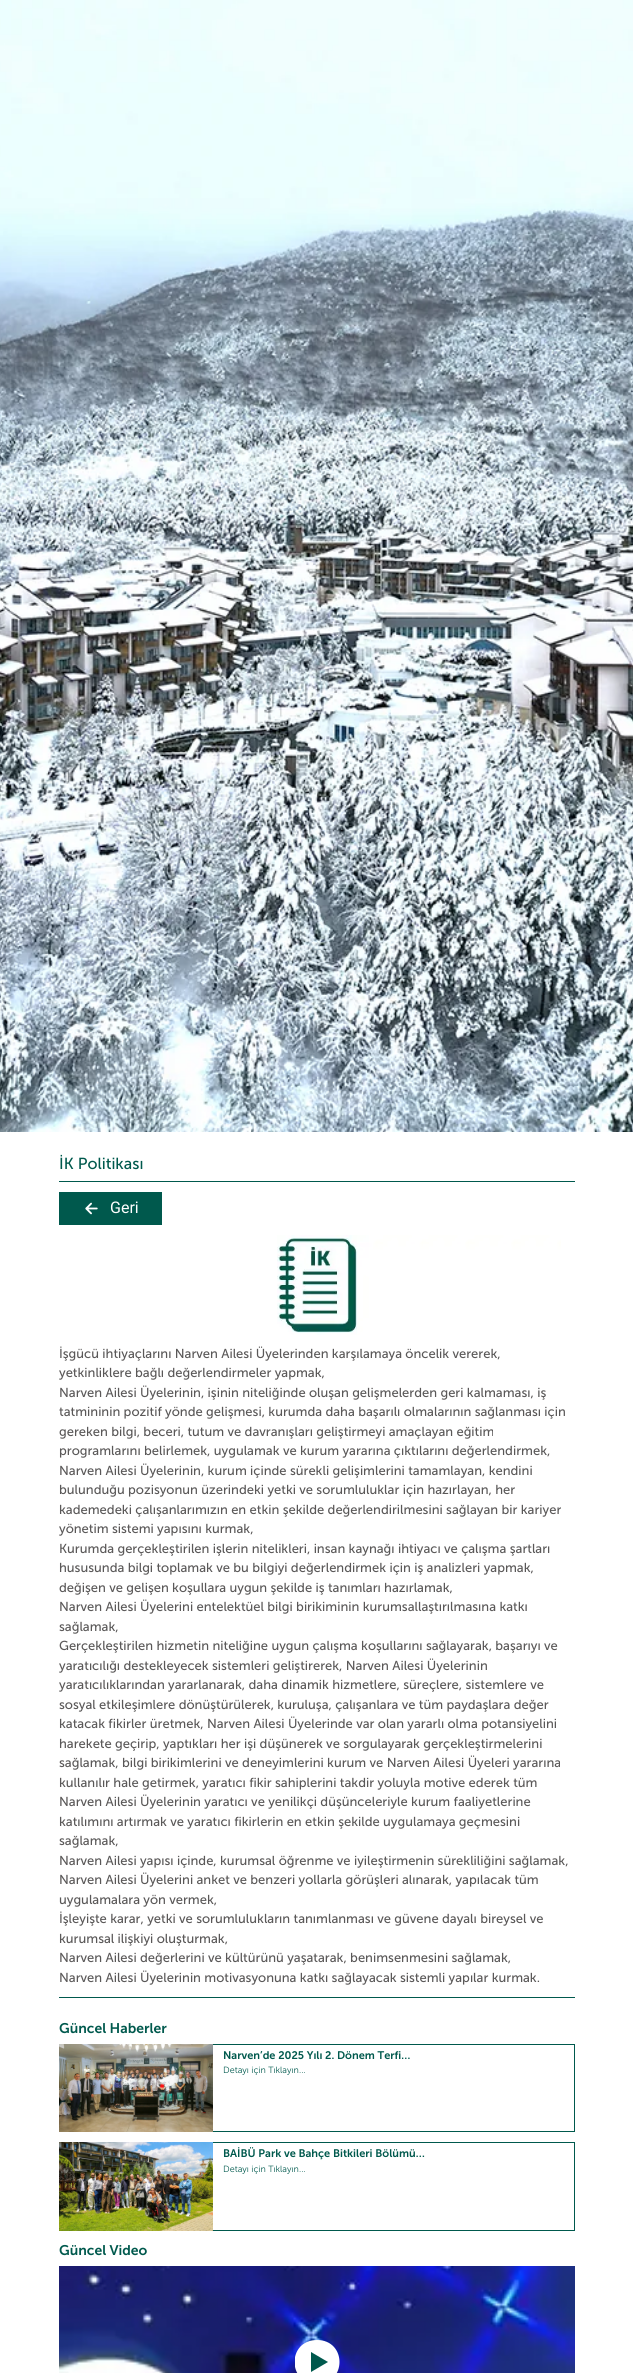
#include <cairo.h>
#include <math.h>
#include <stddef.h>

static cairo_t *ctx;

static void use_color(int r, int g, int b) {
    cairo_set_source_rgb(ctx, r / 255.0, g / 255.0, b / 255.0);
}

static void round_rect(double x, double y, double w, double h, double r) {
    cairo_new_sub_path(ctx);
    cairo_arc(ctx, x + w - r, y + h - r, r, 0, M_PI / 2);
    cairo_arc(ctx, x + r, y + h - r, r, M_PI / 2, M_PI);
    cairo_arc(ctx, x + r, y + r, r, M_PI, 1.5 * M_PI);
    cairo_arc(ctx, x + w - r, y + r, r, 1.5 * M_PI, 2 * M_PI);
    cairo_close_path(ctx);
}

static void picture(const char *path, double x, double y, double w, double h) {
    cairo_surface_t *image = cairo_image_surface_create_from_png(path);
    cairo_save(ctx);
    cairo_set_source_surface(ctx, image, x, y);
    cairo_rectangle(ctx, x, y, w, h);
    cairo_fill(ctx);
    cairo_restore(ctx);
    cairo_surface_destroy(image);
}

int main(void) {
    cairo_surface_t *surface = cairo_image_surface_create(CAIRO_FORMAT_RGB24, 633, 2373);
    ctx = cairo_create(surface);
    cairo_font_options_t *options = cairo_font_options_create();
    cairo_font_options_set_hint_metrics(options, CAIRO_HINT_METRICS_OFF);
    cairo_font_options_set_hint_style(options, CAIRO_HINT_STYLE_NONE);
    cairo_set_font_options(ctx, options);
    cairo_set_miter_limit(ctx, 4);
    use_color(255, 255, 255);
    cairo_paint(ctx);
    picture("img1.png", 0, 0, 633, 1132);
    use_color(0, 89, 77);
    cairo_rectangle(ctx, 59, 1181, 516, 1);
    cairo_fill(ctx);
    cairo_select_font_face(ctx, "Museo Sans", CAIRO_FONT_SLANT_NORMAL, CAIRO_FONT_WEIGHT_NORMAL);
    cairo_set_font_size(ctx, 16);
    cairo_move_to(ctx, 59, 1169);
    cairo_show_text(ctx, "İK Politikası");
    cairo_rectangle(ctx, 59, 1192, 103, 33);
    cairo_fill(ctx);
    picture("img2.png", 85, 1202, 13, 13);
    cairo_select_font_face(ctx, "Roboto", CAIRO_FONT_SLANT_NORMAL, CAIRO_FONT_WEIGHT_NORMAL);
    use_color(255, 255, 255);
    cairo_move_to(ctx, 110, 1213);
    cairo_show_text(ctx, "Geri");
    picture("img3.png", 277, 1235, 284, 100);
    cairo_select_font_face(ctx, "Museo Sans", CAIRO_FONT_SLANT_NORMAL, CAIRO_FONT_WEIGHT_NORMAL);
    cairo_set_font_size(ctx, 13);
    use_color(90, 88, 88);
    cairo_move_to(ctx, 59, 1358);
    cairo_show_text(ctx, "İşgücü ihtiyaçlarını Narven Ailesi Üyelerinden karşılamaya öncelik vererek,");
    cairo_save(ctx);
    cairo_rectangle(ctx, 59, 1192, 516, 806);
    cairo_clip(ctx);
    cairo_move_to(ctx, 59, 1377);
    cairo_show_text(ctx, "yetkinliklere bağlı değerlendirmeler yapmak,");
    cairo_restore(ctx);
    cairo_move_to(ctx, 59, 1397);
    cairo_show_text(ctx, "Narven Ailesi Üyelerinin, işinin niteliğinde oluşan gelişmelerden geri kalmaması, iş");
    cairo_move_to(ctx, 59, 1416);
    cairo_show_text(ctx, "tatmininin pozitif yönde gelişmesi, kurumda daha başarılı olmalarının sağlanması için");
    cairo_move_to(ctx, 59, 1436);
    cairo_show_text(ctx, "gereken bilgi, beceri, tutum ve davranışları geliştirmeyi amaçlayan eğitim");
    cairo_move_to(ctx, 59, 1455);
    cairo_show_text(ctx, "programlarını belirlemek, uygulamak ve kurum yararına çıktılarını değerlendirmek,");
    cairo_move_to(ctx, 59, 1475);
    cairo_show_text(ctx, "Narven Ailesi Üyelerinin, kurum içinde sürekli gelişimlerini tamamlayan, kendini");
    cairo_move_to(ctx, 59, 1494);
    cairo_show_text(ctx, "bulunduğu pozisyonun üzerindeki yetki ve sorumluluklar için hazırlayan, her");
    cairo_move_to(ctx, 59, 1514);
    cairo_show_text(ctx, "kademedeki çalışanlarımızın en etkin şekilde değerlendirilmesini sağlayan bir kariyer");
    cairo_save(ctx);
    cairo_rectangle(ctx, 59, 1192, 516, 806);
    cairo_clip(ctx);
    cairo_move_to(ctx, 59, 1533);
    cairo_show_text(ctx, "yönetim sistemi yapısını kurmak,");
    cairo_restore(ctx);
    cairo_move_to(ctx, 59, 1553);
    cairo_show_text(ctx, "Kurumda gerçekleştirilen işlerin nitelikleri, insan kaynağı ihtiyacı ve çalışma şartları");
    cairo_move_to(ctx, 59, 1572);
    cairo_show_text(ctx, "hususunda bilgi toplamak ve bu bilgiyi değerlendirmek için iş analizleri yapmak,");
    cairo_move_to(ctx, 59, 1592);
    cairo_show_text(ctx, "değişen ve gelişen koşullara uygun şekilde iş tanımları hazırlamak,");
    cairo_move_to(ctx, 59, 1611);
    cairo_show_text(ctx, "Narven Ailesi Üyelerini entelektüel bilgi birikiminin kurumsallaştırılmasına katkı");
    cairo_move_to(ctx, 59, 1631);
    cairo_show_text(ctx, "sağlamak,");
    cairo_move_to(ctx, 59, 1650);
    cairo_show_text(ctx, "Gerçekleştirilen hizmetin niteliğine uygun çalışma koşullarını sağlayarak, başarıyı ve");
    cairo_save(ctx);
    cairo_rectangle(ctx, 59, 1192, 516, 806);
    cairo_clip(ctx);
    cairo_move_to(ctx, 59, 1670);
    cairo_show_text(ctx, "yaratıcılığı destekleyecek sistemleri geliştirerek, Narven Ailesi Üyelerinin");
    cairo_move_to(ctx, 59, 1689);
    cairo_show_text(ctx, "yaratıcılıklarından yararlanarak, daha dinamik hizmetlere, süreçlere, sistemlere ve");
    cairo_restore(ctx);
    cairo_move_to(ctx, 59, 1709);
    cairo_show_text(ctx, "sosyal etkileşimlere dönüştürülerek, kuruluşa, çalışanlara ve tüm paydaşlara değer");
    cairo_move_to(ctx, 59, 1728);
    cairo_show_text(ctx, "katacak fikirler üretmek, Narven Ailesi Üyelerinde var olan yararlı olma potansiyelini");
    cairo_move_to(ctx, 59, 1748);
    cairo_show_text(ctx, "harekete geçirip, yaptıkları her işi düşünerek ve sorgulayarak gerçekleştirmelerini");
    cairo_move_to(ctx, 59, 1767);
    cairo_show_text(ctx, "sağlamak, bilgi birikimlerini ve deneyimlerini kurum ve Narven Ailesi Üyeleri yararına");
    cairo_move_to(ctx, 59, 1787);
    cairo_show_text(ctx, "kullanılır hale getirmek, yaratıcı fikir sahiplerini takdir yoluyla motive ederek tüm");
    cairo_move_to(ctx, 59, 1806);
    cairo_show_text(ctx, "Narven Ailesi Üyelerinin yaratıcı ve yenilikçi düşünceleriyle kurum faaliyetlerine");
    cairo_move_to(ctx, 59, 1826);
    cairo_show_text(ctx, "katılımını artırmak ve yaratıcı fikirlerin en etkin şekilde uygulamaya geçmesini");
    cairo_move_to(ctx, 59, 1845);
    cairo_show_text(ctx, "sağlamak,");
    cairo_move_to(ctx, 59, 1865);
    cairo_show_text(ctx, "Narven Ailesi yapısı içinde, kurumsal öğrenme ve iyileştirmenin sürekliliğini sağlamak,");
    cairo_move_to(ctx, 59, 1884);
    cairo_show_text(ctx, "Narven Ailesi Üyelerini anket ve benzeri yollarla görüşleri alınarak, yapılacak tüm");
    cairo_move_to(ctx, 59, 1904);
    cairo_show_text(ctx, "uygulamalara yön vermek,");
    cairo_move_to(ctx, 59, 1923);
    cairo_show_text(ctx, "İşleyişte karar, yetki ve sorumlulukların tanımlanması ve güvene dayalı bireysel ve");
    cairo_move_to(ctx, 59, 1943);
    cairo_show_text(ctx, "kurumsal ilişkiyi oluşturmak,");
    cairo_move_to(ctx, 59, 1962);
    cairo_show_text(ctx, "Narven Ailesi değerlerini ve kültürünü yaşatarak, benimsenmesini sağlamak,");
    cairo_move_to(ctx, 59, 1982);
    cairo_show_text(ctx, "Narven Ailesi Üyelerinin motivasyonuna katkı sağlayacak sistemli yapılar kurmak.");
    use_color(0, 89, 77);
    cairo_rectangle(ctx, 59, 1997, 516, 1);
    cairo_fill(ctx);
    cairo_select_font_face(ctx, "Museo Sans SemiBold", CAIRO_FONT_SLANT_NORMAL, CAIRO_FONT_WEIGHT_NORMAL);
    cairo_set_font_size(ctx, 14);
    cairo_move_to(ctx, 59, 2033);
    cairo_show_text(ctx, "Güncel Haberler");
    picture("img4.png", 59, 2044, 154, 88);
    cairo_rectangle(ctx, 213, 2044, 362, 1);
    cairo_fill(ctx);
    cairo_rectangle(ctx, 574, 2044, 1, 88);
    cairo_fill(ctx);
    cairo_rectangle(ctx, 213, 2131, 362, 1);
    cairo_fill(ctx);
    cairo_set_font_size(ctx, 11);
    cairo_move_to(ctx, 223, 2059);
    cairo_show_text(ctx, "Narven’de 2025 Yılı 2. Dönem Terfi…");
    cairo_select_font_face(ctx, "Museo Sans Light", CAIRO_FONT_SLANT_NORMAL, CAIRO_FONT_WEIGHT_NORMAL);
    cairo_set_font_size(ctx, 9);
    cairo_move_to(ctx, 223, 2073);
    cairo_show_text(ctx, "Detayı için Tıklayın...");
    picture("img5.png", 59, 2142, 154, 89);
    cairo_rectangle(ctx, 213, 2142, 362, 1);
    cairo_fill(ctx);
    cairo_rectangle(ctx, 574, 2142, 1, 89);
    cairo_fill(ctx);
    cairo_rectangle(ctx, 213, 2230, 362, 1);
    cairo_fill(ctx);
    cairo_select_font_face(ctx, "Museo Sans SemiBold", CAIRO_FONT_SLANT_NORMAL, CAIRO_FONT_WEIGHT_NORMAL);
    cairo_set_font_size(ctx, 11);
    cairo_move_to(ctx, 223, 2157);
    cairo_show_text(ctx, "BAİBÜ Park ve Bahçe Bitkileri Bölümü…");
    cairo_select_font_face(ctx, "Museo Sans Light", CAIRO_FONT_SLANT_NORMAL, CAIRO_FONT_WEIGHT_NORMAL);
    cairo_set_font_size(ctx, 9);
    cairo_move_to(ctx, 223, 2172);
    cairo_show_text(ctx, "Detayı için Tıklayın...");
    cairo_select_font_face(ctx, "Museo Sans SemiBold", CAIRO_FONT_SLANT_NORMAL, CAIRO_FONT_WEIGHT_NORMAL);
    cairo_set_font_size(ctx, 14);
    cairo_move_to(ctx, 59, 2255);
    cairo_show_text(ctx, "Güncel Video");
    picture("img6.png", 59, 2266, 516, 107);
    round_rect(296, 2342, 41, 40, 20);
    cairo_fill(ctx);
    cairo_save(ctx);
    cairo_rectangle(ctx, 295, 2340, 45, 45);
    cairo_clip(ctx);
    use_color(255, 255, 255);
    cairo_new_path(ctx);
    cairo_move_to(ctx, 317, 2340);
    cairo_curve_to(ctx, 287, 2340, 287, 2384, 317, 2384);
    cairo_curve_to(ctx, 347, 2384, 347, 2340, 317, 2340);
    cairo_close_path(ctx);
    cairo_move_to(ctx, 311, 2372);
    cairo_line_to(ctx, 311, 2352);
    cairo_line_to(ctx, 328, 2362);
    cairo_close_path(ctx);
    cairo_fill(ctx);
    cairo_restore(ctx);
    cairo_surface_write_to_png(surface, "result.png");
    cairo_font_options_destroy(options);
    cairo_destroy(ctx);
    cairo_surface_destroy(surface);
    return 0;
}
